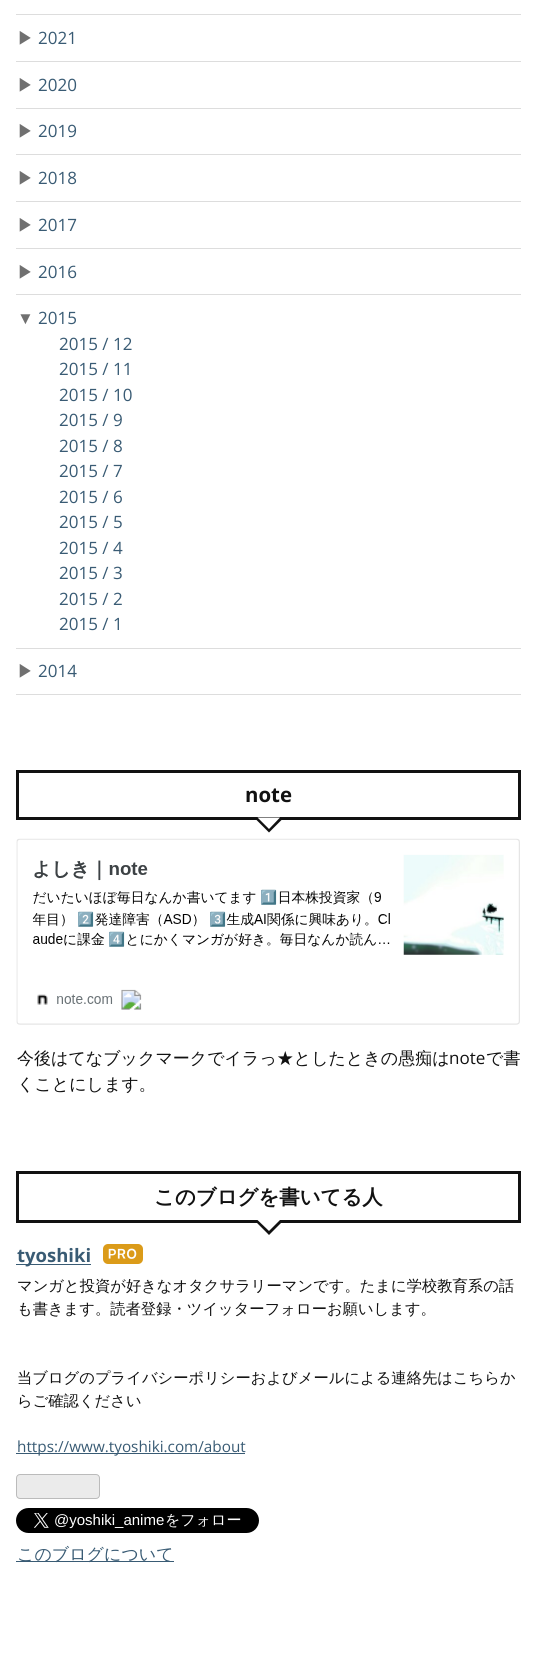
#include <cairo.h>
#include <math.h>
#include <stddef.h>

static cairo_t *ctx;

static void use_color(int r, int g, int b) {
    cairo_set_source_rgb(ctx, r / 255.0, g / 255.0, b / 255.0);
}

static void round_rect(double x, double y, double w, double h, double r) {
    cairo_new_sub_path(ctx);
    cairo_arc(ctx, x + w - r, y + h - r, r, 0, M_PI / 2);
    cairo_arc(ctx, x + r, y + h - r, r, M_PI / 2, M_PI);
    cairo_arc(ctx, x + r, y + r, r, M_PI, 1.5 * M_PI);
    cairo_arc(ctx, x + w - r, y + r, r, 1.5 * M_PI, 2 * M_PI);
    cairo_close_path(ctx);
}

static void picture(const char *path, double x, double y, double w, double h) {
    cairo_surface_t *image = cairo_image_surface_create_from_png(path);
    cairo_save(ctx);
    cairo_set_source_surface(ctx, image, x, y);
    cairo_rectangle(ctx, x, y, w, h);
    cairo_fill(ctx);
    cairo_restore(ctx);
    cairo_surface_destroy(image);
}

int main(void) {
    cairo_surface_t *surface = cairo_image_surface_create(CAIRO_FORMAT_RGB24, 537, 1679);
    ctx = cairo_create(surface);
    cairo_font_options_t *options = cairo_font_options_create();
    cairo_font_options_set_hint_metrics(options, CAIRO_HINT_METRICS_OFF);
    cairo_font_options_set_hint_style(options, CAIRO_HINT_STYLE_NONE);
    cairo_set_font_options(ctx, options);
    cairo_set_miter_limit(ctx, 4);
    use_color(255, 255, 255);
    cairo_paint(ctx);
    use_color(221, 221, 221);
    cairo_rectangle(ctx, 16, 14, 505, 1);
    cairo_fill(ctx);
    cairo_rectangle(ctx, 16, 61, 505, 1);
    cairo_fill(ctx);
    cairo_select_font_face(ctx, "WenQuanYi Zen Hei Medium", CAIRO_FONT_SLANT_NORMAL, CAIRO_FONT_WEIGHT_NORMAL);
    cairo_set_font_size(ctx, 17);
    use_color(112, 112, 112);
    cairo_move_to(ctx, 17, 44);
    cairo_show_text(ctx, "▶");
    cairo_select_font_face(ctx, "Open Sans", CAIRO_FONT_SLANT_NORMAL, CAIRO_FONT_WEIGHT_NORMAL);
    use_color(57, 91, 116);
    cairo_move_to(ctx, 38, 44);
    cairo_show_text(ctx, "2021");
    use_color(221, 221, 221);
    cairo_rectangle(ctx, 16, 108, 505, 1);
    cairo_fill(ctx);
    cairo_select_font_face(ctx, "WenQuanYi Zen Hei Medium", CAIRO_FONT_SLANT_NORMAL, CAIRO_FONT_WEIGHT_NORMAL);
    use_color(112, 112, 112);
    cairo_move_to(ctx, 17, 91);
    cairo_show_text(ctx, "▶");
    cairo_select_font_face(ctx, "Open Sans", CAIRO_FONT_SLANT_NORMAL, CAIRO_FONT_WEIGHT_NORMAL);
    use_color(57, 91, 116);
    cairo_move_to(ctx, 38, 91);
    cairo_show_text(ctx, "2020");
    use_color(221, 221, 221);
    cairo_rectangle(ctx, 16, 154, 505, 1);
    cairo_fill(ctx);
    cairo_select_font_face(ctx, "WenQuanYi Zen Hei Medium", CAIRO_FONT_SLANT_NORMAL, CAIRO_FONT_WEIGHT_NORMAL);
    use_color(112, 112, 112);
    cairo_move_to(ctx, 17, 137);
    cairo_show_text(ctx, "▶");
    cairo_select_font_face(ctx, "Open Sans", CAIRO_FONT_SLANT_NORMAL, CAIRO_FONT_WEIGHT_NORMAL);
    use_color(57, 91, 116);
    cairo_move_to(ctx, 38, 137);
    cairo_show_text(ctx, "2019");
    use_color(221, 221, 221);
    cairo_rectangle(ctx, 16, 201, 505, 1);
    cairo_fill(ctx);
    cairo_select_font_face(ctx, "WenQuanYi Zen Hei Medium", CAIRO_FONT_SLANT_NORMAL, CAIRO_FONT_WEIGHT_NORMAL);
    use_color(112, 112, 112);
    cairo_move_to(ctx, 17, 184);
    cairo_show_text(ctx, "▶");
    cairo_select_font_face(ctx, "Open Sans", CAIRO_FONT_SLANT_NORMAL, CAIRO_FONT_WEIGHT_NORMAL);
    use_color(57, 91, 116);
    cairo_move_to(ctx, 38, 184);
    cairo_show_text(ctx, "2018");
    use_color(221, 221, 221);
    cairo_rectangle(ctx, 16, 248, 505, 1);
    cairo_fill(ctx);
    cairo_select_font_face(ctx, "WenQuanYi Zen Hei Medium", CAIRO_FONT_SLANT_NORMAL, CAIRO_FONT_WEIGHT_NORMAL);
    use_color(112, 112, 112);
    cairo_move_to(ctx, 17, 231);
    cairo_show_text(ctx, "▶");
    cairo_select_font_face(ctx, "Open Sans", CAIRO_FONT_SLANT_NORMAL, CAIRO_FONT_WEIGHT_NORMAL);
    use_color(57, 91, 116);
    cairo_move_to(ctx, 38, 231);
    cairo_show_text(ctx, "2017");
    use_color(221, 221, 221);
    cairo_rectangle(ctx, 16, 294, 505, 1);
    cairo_fill(ctx);
    cairo_select_font_face(ctx, "WenQuanYi Zen Hei Medium", CAIRO_FONT_SLANT_NORMAL, CAIRO_FONT_WEIGHT_NORMAL);
    use_color(112, 112, 112);
    cairo_move_to(ctx, 17, 278);
    cairo_show_text(ctx, "▶");
    cairo_select_font_face(ctx, "Open Sans", CAIRO_FONT_SLANT_NORMAL, CAIRO_FONT_WEIGHT_NORMAL);
    use_color(57, 91, 116);
    cairo_move_to(ctx, 38, 278);
    cairo_show_text(ctx, "2016");
    use_color(221, 221, 221);
    cairo_rectangle(ctx, 16, 648, 505, 1);
    cairo_fill(ctx);
    cairo_select_font_face(ctx, "Liberation Sans", CAIRO_FONT_SLANT_NORMAL, CAIRO_FONT_WEIGHT_NORMAL);
    use_color(112, 112, 112);
    cairo_move_to(ctx, 17, 324);
    cairo_show_text(ctx, "▼");
    cairo_select_font_face(ctx, "Open Sans", CAIRO_FONT_SLANT_NORMAL, CAIRO_FONT_WEIGHT_NORMAL);
    use_color(57, 91, 116);
    cairo_move_to(ctx, 38, 324);
    cairo_show_text(ctx, "2015");
    cairo_move_to(ctx, 59, 350);
    cairo_show_text(ctx, "2015 / 12");
    cairo_move_to(ctx, 59, 375);
    cairo_show_text(ctx, "2015 / 11");
    cairo_move_to(ctx, 59, 401);
    cairo_show_text(ctx, "2015 / 10");
    cairo_move_to(ctx, 59, 426);
    cairo_show_text(ctx, "2015 / 9");
    cairo_move_to(ctx, 59, 452);
    cairo_show_text(ctx, "2015 / 8");
    cairo_move_to(ctx, 59, 477);
    cairo_show_text(ctx, "2015 / 7");
    cairo_move_to(ctx, 59, 503);
    cairo_show_text(ctx, "2015 / 6");
    cairo_move_to(ctx, 59, 528);
    cairo_show_text(ctx, "2015 / 5");
    cairo_move_to(ctx, 59, 554);
    cairo_show_text(ctx, "2015 / 4");
    cairo_move_to(ctx, 59, 579);
    cairo_show_text(ctx, "2015 / 3");
    cairo_move_to(ctx, 59, 605);
    cairo_show_text(ctx, "2015 / 2");
    cairo_move_to(ctx, 59, 630);
    cairo_show_text(ctx, "2015 / 1");
    use_color(221, 221, 221);
    cairo_rectangle(ctx, 16, 694, 505, 1);
    cairo_fill(ctx);
    cairo_select_font_face(ctx, "WenQuanYi Zen Hei Medium", CAIRO_FONT_SLANT_NORMAL, CAIRO_FONT_WEIGHT_NORMAL);
    use_color(112, 112, 112);
    cairo_move_to(ctx, 17, 677);
    cairo_show_text(ctx, "▶");
    cairo_select_font_face(ctx, "Open Sans", CAIRO_FONT_SLANT_NORMAL, CAIRO_FONT_WEIGHT_NORMAL);
    use_color(57, 91, 116);
    cairo_move_to(ctx, 38, 677);
    cairo_show_text(ctx, "2014");
    cairo_rectangle(ctx, 17.5, 771.5, 502, 47);
    use_color(17, 17, 17);
    cairo_set_line_width(ctx, 3);
    cairo_stroke(ctx);
    cairo_select_font_face(ctx, "Open Sans", CAIRO_FONT_SLANT_NORMAL, CAIRO_FONT_WEIGHT_BOLD);
    cairo_set_font_size(ctx, 20.4);
    cairo_move_to(ctx, 245, 802);
    cairo_show_text(ctx, "note");
    cairo_new_path(ctx);
    cairo_move_to(ctx, 254, 817.5);
    cairo_line_to(ctx, 284, 817.5);
    cairo_line_to(ctx, 269, 832.5);
    cairo_close_path(ctx);
    cairo_fill(ctx);
    use_color(255, 255, 255);
    cairo_new_path(ctx);
    cairo_move_to(ctx, 257.5, 817.5);
    cairo_line_to(ctx, 280, 817.5);
    cairo_line_to(ctx, 269, 829);
    cairo_close_path(ctx);
    cairo_fill(ctx);
    picture("img1.png", 16, 838, 504, 187);
    cairo_select_font_face(ctx, "WenQuanYi Zen Hei Medium", CAIRO_FONT_SLANT_NORMAL, CAIRO_FONT_WEIGHT_NORMAL);
    cairo_set_font_size(ctx, 17);
    use_color(17, 17, 17);
    cairo_move_to(ctx, 17, 1064);
    cairo_show_text(ctx, "今後はてなブックマークでイラっ★としたときの愚痴は");
    cairo_select_font_face(ctx, "Open Sans", CAIRO_FONT_SLANT_NORMAL, CAIRO_FONT_WEIGHT_NORMAL);
    cairo_move_to(ctx, 449, 1064);
    cairo_show_text(ctx, "note");
    cairo_select_font_face(ctx, "WenQuanYi Zen Hei Medium", CAIRO_FONT_SLANT_NORMAL, CAIRO_FONT_WEIGHT_NORMAL);
    cairo_move_to(ctx, 486, 1064);
    cairo_show_text(ctx, "で書");
    cairo_move_to(ctx, 17, 1090);
    cairo_show_text(ctx, "くことにします。");
    cairo_rectangle(ctx, 17.5, 1172.5, 502, 49);
    cairo_stroke(ctx);
    cairo_select_font_face(ctx, "WenQuanYi Zen Hei", CAIRO_FONT_SLANT_NORMAL, CAIRO_FONT_WEIGHT_BOLD);
    cairo_set_font_size(ctx, 20.4);
    cairo_move_to(ctx, 154, 1204);
    cairo_show_text(ctx, "このブログを書いてる人");
    cairo_new_path(ctx);
    cairo_move_to(ctx, 254, 1220);
    cairo_line_to(ctx, 284, 1220);
    cairo_line_to(ctx, 269, 1235);
    cairo_close_path(ctx);
    cairo_fill(ctx);
    use_color(255, 255, 255);
    cairo_new_path(ctx);
    cairo_move_to(ctx, 257.5, 1220);
    cairo_line_to(ctx, 280, 1220);
    cairo_line_to(ctx, 269, 1231);
    cairo_close_path(ctx);
    cairo_fill(ctx);
    use_color(57, 91, 116);
    cairo_rectangle(ctx, 16, 1264, 75, 1);
    cairo_fill(ctx);
    cairo_select_font_face(ctx, "Open Sans", CAIRO_FONT_SLANT_NORMAL, CAIRO_FONT_WEIGHT_BOLD);
    cairo_set_font_size(ctx, 18.5);
    cairo_move_to(ctx, 17, 1262);
    cairo_show_text(ctx, "tyoshiki");
    picture("img2.png", 103, 1244, 40, 20);
    cairo_select_font_face(ctx, "WenQuanYi Zen Hei Medium", CAIRO_FONT_SLANT_NORMAL, CAIRO_FONT_WEIGHT_NORMAL);
    cairo_set_font_size(ctx, 15.3);
    use_color(17, 17, 17);
    cairo_move_to(ctx, 17, 1291);
    cairo_show_text(ctx, "マンガと投資が好きなオタクサラリーマンです。たまに学校教育系の話");
    cairo_move_to(ctx, 17, 1314);
    cairo_show_text(ctx, "も書きます。読者登録・ツイッターフォローお願いします。");
    cairo_move_to(ctx, 17, 1383);
    cairo_show_text(ctx, "当ブログのプライバシーポリシーおよびメールによる連絡先はこちらか");
    cairo_move_to(ctx, 17, 1406);
    cairo_show_text(ctx, "らご確認ください");
    use_color(57, 91, 116);
    cairo_rectangle(ctx, 16, 1453, 229, 1);
    cairo_fill(ctx);
    cairo_select_font_face(ctx, "Open Sans", CAIRO_FONT_SLANT_NORMAL, CAIRO_FONT_WEIGHT_NORMAL);
    cairo_move_to(ctx, 17, 1452);
    cairo_show_text(ctx, "https://www.tyoshiki.com/about");
    use_color(235, 235, 235);
    round_rect(16.5, 1474.5, 83, 24, 3.5);
    cairo_fill_preserve(ctx);
    use_color(187, 187, 187);
    cairo_set_line_width(ctx, 1);
    cairo_stroke(ctx);
    use_color(0, 0, 0);
    round_rect(16, 1508, 243, 25, 12.5);
    cairo_fill(ctx);
    picture("img3.png", 34, 1513, 15, 15);
    cairo_select_font_face(ctx, "Liberation Sans", CAIRO_FONT_SLANT_NORMAL, CAIRO_FONT_WEIGHT_NORMAL);
    cairo_set_font_size(ctx, 15);
    use_color(255, 255, 255);
    cairo_move_to(ctx, 54, 1525);
    cairo_show_text(ctx, "@yoshiki_anime");
    cairo_select_font_face(ctx, "WenQuanYi Zen Hei Medium", CAIRO_FONT_SLANT_NORMAL, CAIRO_FONT_WEIGHT_NORMAL);
    cairo_move_to(ctx, 165, 1525);
    cairo_show_text(ctx, "をフォロー");
    use_color(57, 91, 116);
    cairo_rectangle(ctx, 16, 1561, 158, 1);
    cairo_fill(ctx);
    cairo_set_font_size(ctx, 17);
    cairo_move_to(ctx, 17, 1560);
    cairo_show_text(ctx, "このブログについて");
    cairo_surface_write_to_png(surface, "result.png");
    cairo_font_options_destroy(options);
    cairo_destroy(ctx);
    cairo_surface_destroy(surface);
    return 0;
}
